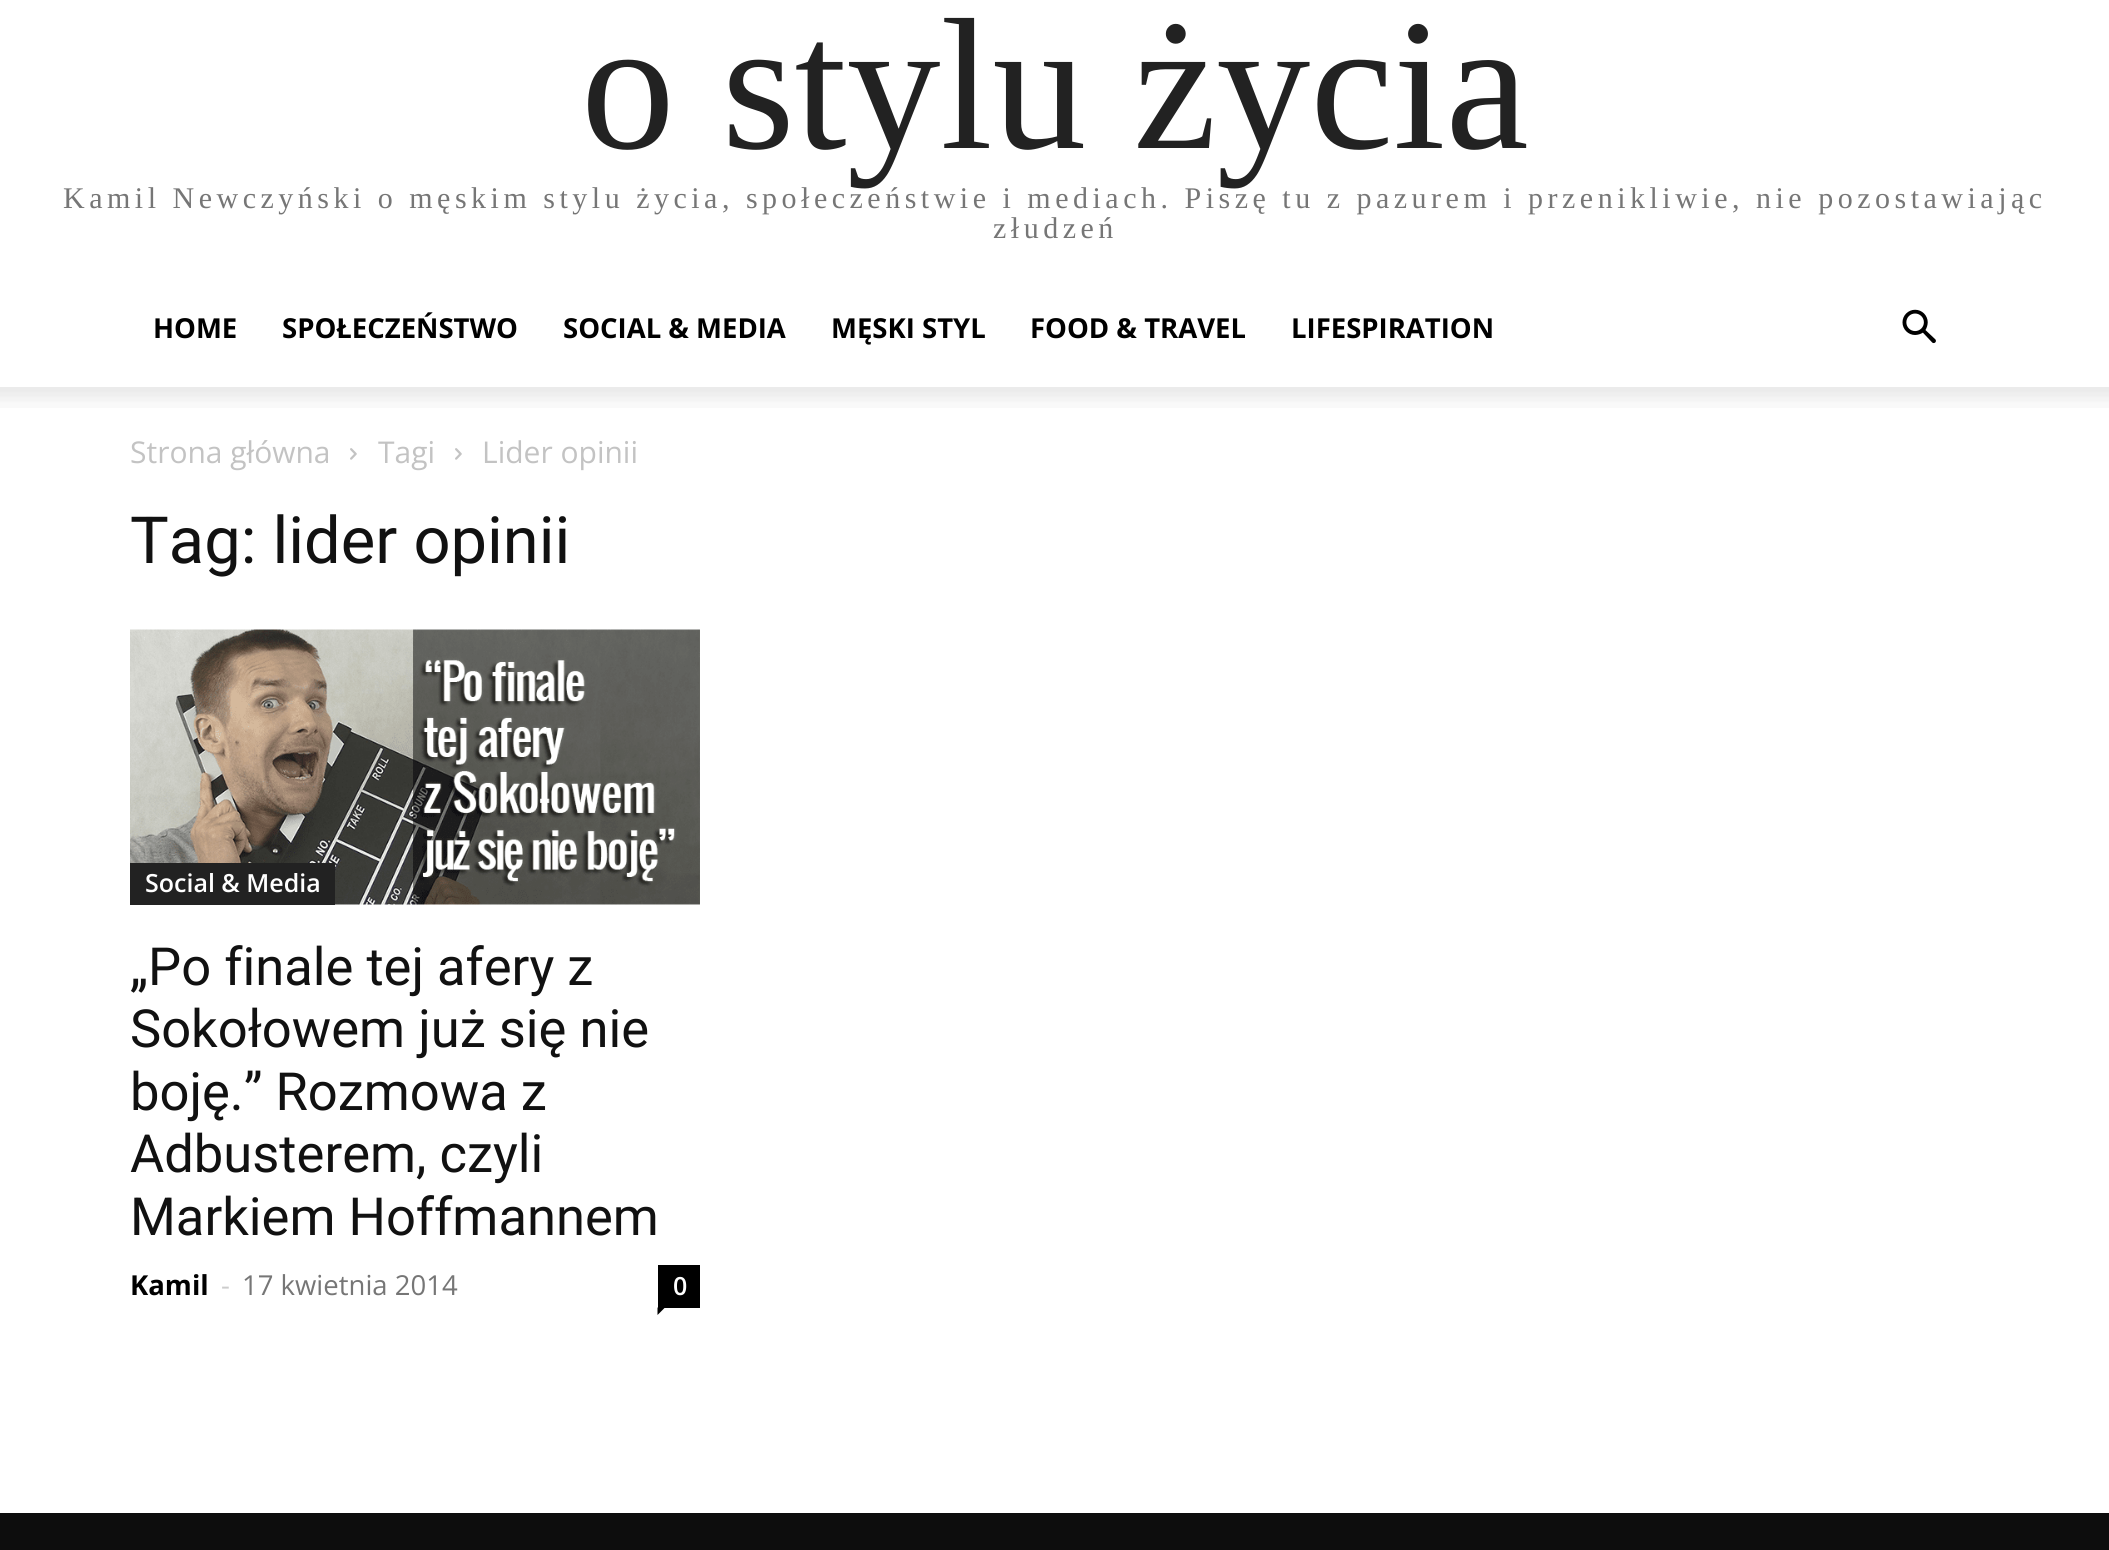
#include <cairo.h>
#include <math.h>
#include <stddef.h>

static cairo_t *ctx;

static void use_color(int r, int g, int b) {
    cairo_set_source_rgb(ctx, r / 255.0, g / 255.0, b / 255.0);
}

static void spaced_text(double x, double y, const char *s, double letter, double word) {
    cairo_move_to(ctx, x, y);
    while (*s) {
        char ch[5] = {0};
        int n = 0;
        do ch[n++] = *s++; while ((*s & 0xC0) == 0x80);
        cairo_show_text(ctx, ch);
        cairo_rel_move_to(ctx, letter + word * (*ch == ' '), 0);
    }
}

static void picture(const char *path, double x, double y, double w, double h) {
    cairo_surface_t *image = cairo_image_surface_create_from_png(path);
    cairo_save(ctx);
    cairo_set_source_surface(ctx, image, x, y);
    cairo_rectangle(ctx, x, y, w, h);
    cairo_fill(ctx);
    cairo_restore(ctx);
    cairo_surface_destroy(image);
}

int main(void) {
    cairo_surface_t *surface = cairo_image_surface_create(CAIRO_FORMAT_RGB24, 2109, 1550);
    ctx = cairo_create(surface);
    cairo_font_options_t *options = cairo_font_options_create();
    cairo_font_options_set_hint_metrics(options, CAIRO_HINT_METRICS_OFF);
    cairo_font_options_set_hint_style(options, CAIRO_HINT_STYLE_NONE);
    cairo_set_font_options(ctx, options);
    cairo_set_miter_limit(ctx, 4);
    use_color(255, 255, 255);
    cairo_paint(ctx);
    cairo_select_font_face(ctx, "Liberation Serif", CAIRO_FONT_SLANT_NORMAL, CAIRO_FONT_WEIGHT_NORMAL);
    cairo_set_font_size(ctx, 187.5);
    use_color(34, 34, 34);
    cairo_move_to(ctx, 581, 148);
    cairo_show_text(ctx, "o stylu życia");
    cairo_set_font_size(ctx, 30);
    use_color(118, 118, 118);
    spaced_text(63, 208, "Kamil Newczyński o męskim stylu życia, społeczeństwie i mediach. Piszę tu z pazurem i przenikliwie, nie pozostawiając", 4.5, 0);
    spaced_text(993, 238, "złudzeń", 4.5, 0);
    cairo_select_font_face(ctx, "Open Sans", CAIRO_FONT_SLANT_NORMAL, CAIRO_FONT_WEIGHT_BOLD);
    cairo_set_font_size(ctx, 27.5);
    use_color(0, 0, 0);
    cairo_move_to(ctx, 153, 338);
    cairo_show_text(ctx, "HOME");
    cairo_move_to(ctx, 282, 338);
    cairo_show_text(ctx, "SPOŁECZEŃSTWO");
    cairo_move_to(ctx, 563, 338);
    cairo_show_text(ctx, "SOCIAL & MEDIA");
    cairo_move_to(ctx, 831, 338);
    cairo_show_text(ctx, "MĘSKI STYL");
    cairo_move_to(ctx, 1030, 338);
    cairo_show_text(ctx, "FOOD & TRAVEL");
    cairo_move_to(ctx, 1291, 338);
    cairo_show_text(ctx, "LIFESPIRATION");
    picture("img1.png", 1902, 309, 34, 35);
    picture("img2.png", 0, 387, 2109, 21);
    cairo_select_font_face(ctx, "Open Sans", CAIRO_FONT_SLANT_NORMAL, CAIRO_FONT_WEIGHT_NORMAL);
    cairo_set_font_size(ctx, 30);
    use_color(195, 195, 195);
    cairo_move_to(ctx, 130, 463);
    cairo_show_text(ctx, "Strona główna");
    picture("img3.png", 350, 448, 7, 12);
    cairo_move_to(ctx, 378, 463);
    cairo_show_text(ctx, "Tagi");
    picture("img3.png", 455, 448, 7, 12);
    cairo_move_to(ctx, 482, 463);
    cairo_show_text(ctx, "Lider opinii");
    cairo_select_font_face(ctx, "Roboto", CAIRO_FONT_SLANT_NORMAL, CAIRO_FONT_WEIGHT_NORMAL);
    cairo_set_font_size(ctx, 65);
    use_color(17, 17, 17);
    cairo_move_to(ctx, 130, 563);
    cairo_show_text(ctx, "Tag: lider opinii");
    picture("img4.png", 130, 629, 570, 276);
    use_color(34, 34, 34);
    cairo_rectangle(ctx, 130, 863, 205, 42);
    cairo_fill(ctx);
    cairo_select_font_face(ctx, "Open Sans SemiBold", CAIRO_FONT_SLANT_NORMAL, CAIRO_FONT_WEIGHT_NORMAL);
    cairo_set_font_size(ctx, 25);
    use_color(255, 255, 255);
    cairo_move_to(ctx, 145, 892);
    cairo_show_text(ctx, "Social & Media");
    cairo_select_font_face(ctx, "Roboto", CAIRO_FONT_SLANT_NORMAL, CAIRO_FONT_WEIGHT_NORMAL);
    cairo_set_font_size(ctx, 52.5);
    use_color(17, 17, 17);
    cairo_move_to(ctx, 130, 985);
    cairo_show_text(ctx, "„Po finale tej afery z");
    cairo_move_to(ctx, 130, 1047);
    cairo_show_text(ctx, "Sokołowem już się nie");
    cairo_move_to(ctx, 130, 1110);
    cairo_show_text(ctx, "boję.” Rozmowa z");
    cairo_move_to(ctx, 130, 1172);
    cairo_show_text(ctx, "Adbusterem, czyli");
    cairo_move_to(ctx, 130, 1235);
    cairo_show_text(ctx, "Markiem Hoffmannem");
    cairo_select_font_face(ctx, "Open Sans", CAIRO_FONT_SLANT_NORMAL, CAIRO_FONT_WEIGHT_BOLD);
    cairo_set_font_size(ctx, 27.5);
    use_color(0, 0, 0);
    cairo_move_to(ctx, 130, 1295);
    cairo_show_text(ctx, "Kamil");
    cairo_select_font_face(ctx, "Open Sans", CAIRO_FONT_SLANT_NORMAL, CAIRO_FONT_WEIGHT_NORMAL);
    use_color(204, 204, 204);
    cairo_move_to(ctx, 221, 1295);
    cairo_show_text(ctx, "-");
    use_color(118, 118, 118);
    cairo_move_to(ctx, 242, 1295);
    cairo_show_text(ctx, "17 kwietnia 2014");
    use_color(0, 0, 0);
    cairo_rectangle(ctx, 658, 1265, 42, 43);
    cairo_fill(ctx);
    cairo_select_font_face(ctx, "Open Sans SemiBold", CAIRO_FONT_SLANT_NORMAL, CAIRO_FONT_WEIGHT_NORMAL);
    cairo_set_font_size(ctx, 25);
    use_color(255, 255, 255);
    cairo_move_to(ctx, 673, 1295);
    cairo_show_text(ctx, "0");
    use_color(0, 0, 0);
    cairo_new_path(ctx);
    cairo_move_to(ctx, 657.5, 1307.5);
    cairo_line_to(ctx, 665, 1307.5);
    cairo_line_to(ctx, 657.5, 1315);
    cairo_close_path(ctx);
    cairo_fill(ctx);
    use_color(13, 13, 13);
    cairo_rectangle(ctx, 0, 1513, 2109, 37);
    cairo_fill(ctx);
    cairo_surface_write_to_png(surface, "result.png");
    cairo_font_options_destroy(options);
    cairo_destroy(ctx);
    cairo_surface_destroy(surface);
    return 0;
}
